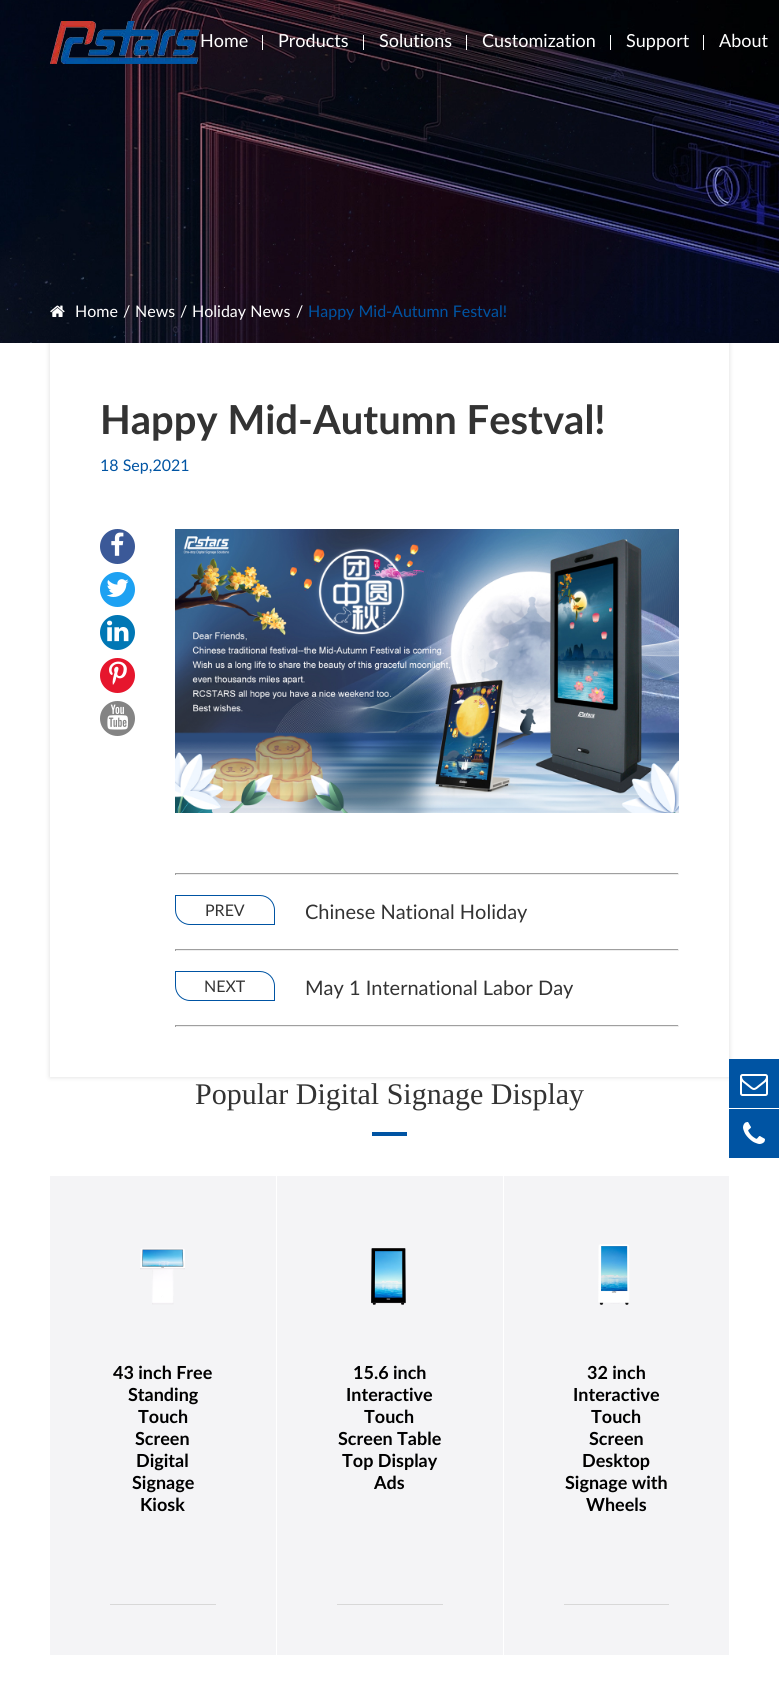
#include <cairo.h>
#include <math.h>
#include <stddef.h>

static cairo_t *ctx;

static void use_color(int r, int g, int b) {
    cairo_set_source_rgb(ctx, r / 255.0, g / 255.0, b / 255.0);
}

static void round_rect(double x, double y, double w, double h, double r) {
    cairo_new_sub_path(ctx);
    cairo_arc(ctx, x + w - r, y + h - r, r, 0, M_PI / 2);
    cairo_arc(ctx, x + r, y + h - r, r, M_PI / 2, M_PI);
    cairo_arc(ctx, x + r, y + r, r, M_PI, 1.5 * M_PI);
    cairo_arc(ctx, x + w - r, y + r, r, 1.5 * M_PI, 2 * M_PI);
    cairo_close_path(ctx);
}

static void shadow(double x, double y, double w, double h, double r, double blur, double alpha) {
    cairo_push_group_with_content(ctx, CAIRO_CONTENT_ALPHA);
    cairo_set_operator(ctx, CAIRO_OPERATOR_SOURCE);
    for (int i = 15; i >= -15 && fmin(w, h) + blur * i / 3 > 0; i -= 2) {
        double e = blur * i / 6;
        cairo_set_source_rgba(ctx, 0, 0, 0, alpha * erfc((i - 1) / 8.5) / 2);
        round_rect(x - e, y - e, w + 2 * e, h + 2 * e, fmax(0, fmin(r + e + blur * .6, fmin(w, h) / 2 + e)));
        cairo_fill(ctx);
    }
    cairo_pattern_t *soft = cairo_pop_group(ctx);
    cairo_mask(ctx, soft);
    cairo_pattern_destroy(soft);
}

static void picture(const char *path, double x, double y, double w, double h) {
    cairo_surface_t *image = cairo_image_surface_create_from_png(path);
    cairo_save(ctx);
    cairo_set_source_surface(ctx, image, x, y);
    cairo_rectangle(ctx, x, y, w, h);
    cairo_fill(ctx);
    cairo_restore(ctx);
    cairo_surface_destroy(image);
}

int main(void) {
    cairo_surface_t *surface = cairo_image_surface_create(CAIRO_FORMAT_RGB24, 779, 1705);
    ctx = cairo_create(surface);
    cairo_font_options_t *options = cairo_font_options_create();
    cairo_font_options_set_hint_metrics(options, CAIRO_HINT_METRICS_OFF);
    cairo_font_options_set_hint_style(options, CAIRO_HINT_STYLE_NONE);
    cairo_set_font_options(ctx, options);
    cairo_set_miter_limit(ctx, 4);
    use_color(255, 255, 255);
    cairo_paint(ctx);
    cairo_save(ctx);
    cairo_set_fill_rule(ctx, CAIRO_FILL_RULE_EVEN_ODD);
    cairo_new_path(ctx);
    cairo_move_to(ctx, 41, 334);
    cairo_line_to(ctx, 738, 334);
    cairo_line_to(ctx, 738, 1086);
    cairo_line_to(ctx, 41, 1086);
    cairo_close_path(ctx);
    cairo_move_to(ctx, 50, 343);
    cairo_line_to(ctx, 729, 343);
    cairo_line_to(ctx, 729, 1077);
    cairo_line_to(ctx, 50, 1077);
    cairo_close_path(ctx);
    cairo_clip(ctx);
    use_color(220, 220, 220);
    shadow(50, 343, 679, 734, 0, 2.5, 1);
    cairo_restore(ctx);
    picture("img2.png", 0, 0, 779, 343);
    picture("img1.png", 50, 21, 150, 43);
    cairo_select_font_face(ctx, "Lato", CAIRO_FONT_SLANT_NORMAL, CAIRO_FONT_WEIGHT_NORMAL);
    cairo_set_font_size(ctx, 18);
    use_color(255, 255, 255);
    cairo_move_to(ctx, 200, 47);
    cairo_show_text(ctx, "Home");
    cairo_rectangle(ctx, 262, 35, 1, 15);
    cairo_fill(ctx);
    cairo_move_to(ctx, 278, 47);
    cairo_show_text(ctx, "Products");
    cairo_rectangle(ctx, 363, 35, 1, 15);
    cairo_fill(ctx);
    cairo_move_to(ctx, 379, 47);
    cairo_show_text(ctx, "Solutions");
    cairo_rectangle(ctx, 466, 35, 1, 15);
    cairo_fill(ctx);
    cairo_move_to(ctx, 482, 47);
    cairo_show_text(ctx, "Customization");
    cairo_rectangle(ctx, 610, 35, 1, 15);
    cairo_fill(ctx);
    cairo_move_to(ctx, 626, 47);
    cairo_show_text(ctx, "Support");
    cairo_rectangle(ctx, 703, 35, 1, 15);
    cairo_fill(ctx);
    cairo_move_to(ctx, 719, 47);
    cairo_show_text(ctx, "About");
    picture("img3.png", 50, 305, 15, 12);
    cairo_set_font_size(ctx, 16);
    cairo_move_to(ctx, 75, 317);
    cairo_show_text(ctx, "Home");
    cairo_move_to(ctx, 123, 317);
    cairo_show_text(ctx, "/");
    cairo_move_to(ctx, 135, 317);
    cairo_show_text(ctx, "News");
    cairo_move_to(ctx, 180, 317);
    cairo_show_text(ctx, "/");
    cairo_move_to(ctx, 192, 317);
    cairo_show_text(ctx, "Holiday News");
    cairo_move_to(ctx, 296, 317);
    cairo_show_text(ctx, "/");
    use_color(0, 84, 163);
    cairo_move_to(ctx, 308, 317);
    cairo_show_text(ctx, "Happy Mid-Autumn Festval!");
    cairo_select_font_face(ctx, "Lato", CAIRO_FONT_SLANT_NORMAL, CAIRO_FONT_WEIGHT_BOLD);
    cairo_set_font_size(ctx, 40);
    use_color(51, 51, 51);
    cairo_move_to(ctx, 100, 434);
    cairo_show_text(ctx, "Happy Mid-Autumn Festval!");
    cairo_select_font_face(ctx, "Lato", CAIRO_FONT_SLANT_NORMAL, CAIRO_FONT_WEIGHT_NORMAL);
    cairo_set_font_size(ctx, 16);
    use_color(0, 84, 163);
    cairo_move_to(ctx, 100, 471);
    cairo_show_text(ctx, "18 Sep,2021");
    use_color(59, 89, 152);
    cairo_new_path(ctx);
    cairo_arc(ctx, 117.5, 546.5, 17.5, 0, 2 * M_PI);
    cairo_fill(ctx);
    picture("img4.png", 111, 532, 13, 24);
    use_color(29, 161, 242);
    cairo_arc(ctx, 117.5, 589.5, 17.5, 0, 2 * M_PI);
    cairo_fill(ctx);
    picture("img5.png", 106, 579, 23, 18);
    use_color(0, 119, 181);
    cairo_arc(ctx, 117.5, 632.5, 17.5, 0, 2 * M_PI);
    cairo_fill(ctx);
    picture("img6.png", 107, 620, 22, 22);
    use_color(230, 22, 45);
    cairo_arc(ctx, 117.5, 675.5, 17.5, 0, 2 * M_PI);
    cairo_fill(ctx);
    picture("img7.png", 109, 661, 18, 24);
    use_color(132, 132, 132);
    cairo_arc(ctx, 117.5, 718.5, 17.5, 0, 2 * M_PI);
    cairo_fill(ctx);
    picture("img8.png", 107, 704, 22, 26);
    picture("img9.png", 175, 529, 504, 284);
    use_color(159, 159, 159);
    cairo_rectangle(ctx, 175, 873, 504, 1);
    cairo_fill(ctx);
    use_color(238, 238, 238);
    cairo_rectangle(ctx, 678, 873, 1, 2);
    cairo_fill(ctx);
    cairo_rectangle(ctx, 175, 874, 504, 1);
    cairo_fill(ctx);
    use_color(159, 159, 159);
    cairo_rectangle(ctx, 175, 873, 1, 2);
    cairo_fill(ctx);
    cairo_new_path(ctx);
    cairo_move_to(ctx, 175.5, 895.5);
    cairo_line_to(ctx, 260, 895.5);
    cairo_curve_to(ctx, 268, 895.5, 274.5, 902, 274.5, 910);
    cairo_line_to(ctx, 274.5, 924.5);
    cairo_line_to(ctx, 190, 924.5);
    cairo_curve_to(ctx, 182, 924.5, 175.5, 918, 175.5, 910);
    cairo_close_path(ctx);
    use_color(0, 84, 163);
    cairo_set_line_width(ctx, 1);
    cairo_stroke(ctx);
    use_color(51, 51, 51);
    cairo_move_to(ctx, 205, 916);
    cairo_show_text(ctx, "PREV");
    cairo_set_font_size(ctx, 20);
    cairo_move_to(ctx, 305, 919);
    cairo_show_text(ctx, "Chinese National Holiday");
    use_color(159, 159, 159);
    cairo_rectangle(ctx, 175, 949, 504, 1);
    cairo_fill(ctx);
    use_color(238, 238, 238);
    cairo_rectangle(ctx, 678, 949, 1, 2);
    cairo_fill(ctx);
    cairo_rectangle(ctx, 175, 950, 504, 1);
    cairo_fill(ctx);
    use_color(159, 159, 159);
    cairo_rectangle(ctx, 175, 949, 1, 2);
    cairo_fill(ctx);
    cairo_new_path(ctx);
    cairo_move_to(ctx, 175.5, 971.5);
    cairo_line_to(ctx, 260, 971.5);
    cairo_curve_to(ctx, 268, 971.5, 274.5, 978, 274.5, 986);
    cairo_line_to(ctx, 274.5, 1000.5);
    cairo_line_to(ctx, 190, 1000.5);
    cairo_curve_to(ctx, 182, 1000.5, 175.5, 994, 175.5, 986);
    cairo_close_path(ctx);
    use_color(0, 84, 163);
    cairo_stroke(ctx);
    cairo_set_font_size(ctx, 16);
    use_color(51, 51, 51);
    cairo_move_to(ctx, 204, 992);
    cairo_show_text(ctx, "NEXT");
    cairo_set_font_size(ctx, 20);
    cairo_move_to(ctx, 305, 995);
    cairo_show_text(ctx, "May 1 International Labor Day");
    use_color(159, 159, 159);
    cairo_rectangle(ctx, 175, 1025, 504, 1);
    cairo_fill(ctx);
    use_color(238, 238, 238);
    cairo_rectangle(ctx, 678, 1025, 1, 2);
    cairo_fill(ctx);
    cairo_rectangle(ctx, 175, 1026, 504, 1);
    cairo_fill(ctx);
    use_color(159, 159, 159);
    cairo_rectangle(ctx, 175, 1025, 1, 2);
    cairo_fill(ctx);
    cairo_select_font_face(ctx, "Liberation Serif", CAIRO_FONT_SLANT_NORMAL, CAIRO_FONT_WEIGHT_NORMAL);
    cairo_set_font_size(ctx, 30);
    use_color(51, 51, 51);
    cairo_move_to(ctx, 195, 1104);
    cairo_show_text(ctx, "Popular Digital Signage Display");
    use_color(0, 84, 163);
    cairo_rectangle(ctx, 372, 1132, 35, 4);
    cairo_fill(ctx);
    use_color(244, 244, 246);
    cairo_rectangle(ctx, 50, 1176, 226, 479);
    cairo_fill(ctx);
    picture("img10.png", 140, 1248, 45, 57);
    cairo_select_font_face(ctx, "Lato", CAIRO_FONT_SLANT_NORMAL, CAIRO_FONT_WEIGHT_BOLD);
    cairo_set_font_size(ctx, 18);
    use_color(0, 0, 0);
    cairo_move_to(ctx, 113, 1379);
    cairo_show_text(ctx, "43 inch Free");
    cairo_move_to(ctx, 128, 1401);
    cairo_show_text(ctx, "Standing");
    cairo_move_to(ctx, 138, 1423);
    cairo_show_text(ctx, "Touch");
    cairo_move_to(ctx, 135, 1445);
    cairo_show_text(ctx, "Screen");
    cairo_move_to(ctx, 136, 1467);
    cairo_show_text(ctx, "Digital");
    cairo_move_to(ctx, 132, 1489);
    cairo_show_text(ctx, "Signage");
    cairo_move_to(ctx, 140, 1511);
    cairo_show_text(ctx, "Kiosk");
    use_color(216, 216, 216);
    cairo_rectangle(ctx, 110, 1604, 106, 1);
    cairo_fill(ctx);
    use_color(244, 244, 246);
    cairo_rectangle(ctx, 277, 1176, 226, 479);
    cairo_fill(ctx);
    picture("img11.png", 371, 1248, 35, 57);
    use_color(0, 0, 0);
    cairo_move_to(ctx, 353, 1379);
    cairo_show_text(ctx, "15.6 inch");
    cairo_move_to(ctx, 346, 1401);
    cairo_show_text(ctx, "Interactive");
    cairo_move_to(ctx, 364, 1423);
    cairo_show_text(ctx, "Touch");
    cairo_move_to(ctx, 338, 1445);
    cairo_show_text(ctx, "Screen Table");
    cairo_move_to(ctx, 342, 1467);
    cairo_show_text(ctx, "Top Display");
    cairo_move_to(ctx, 374, 1489);
    cairo_show_text(ctx, "Ads");
    use_color(216, 216, 216);
    cairo_rectangle(ctx, 337, 1604, 106, 1);
    cairo_fill(ctx);
    use_color(244, 244, 246);
    cairo_rectangle(ctx, 504, 1176, 225, 479);
    cairo_fill(ctx);
    picture("img12.png", 598, 1244, 32, 61);
    use_color(0, 0, 0);
    cairo_move_to(ctx, 587, 1379);
    cairo_show_text(ctx, "32 inch");
    cairo_move_to(ctx, 573, 1401);
    cairo_show_text(ctx, "Interactive");
    cairo_move_to(ctx, 591, 1423);
    cairo_show_text(ctx, "Touch");
    cairo_move_to(ctx, 589, 1445);
    cairo_show_text(ctx, "Screen");
    cairo_move_to(ctx, 582, 1467);
    cairo_show_text(ctx, "Desktop");
    cairo_move_to(ctx, 565, 1489);
    cairo_show_text(ctx, "Signage with");
    cairo_move_to(ctx, 586, 1511);
    cairo_show_text(ctx, "Wheels");
    use_color(216, 216, 216);
    cairo_rectangle(ctx, 564, 1604, 105, 1);
    cairo_fill(ctx);
    use_color(0, 84, 163);
    cairo_rectangle(ctx, 729, 1059, 50, 49);
    cairo_fill(ctx);
    picture("img13.png", 740, 1074, 28, 22);
    cairo_rectangle(ctx, 729, 1109, 50, 49);
    cairo_fill(ctx);
    picture("img14.png", 743, 1122, 22, 22);
    cairo_surface_write_to_png(surface, "result.png");
    cairo_font_options_destroy(options);
    cairo_destroy(ctx);
    cairo_surface_destroy(surface);
    return 0;
}
